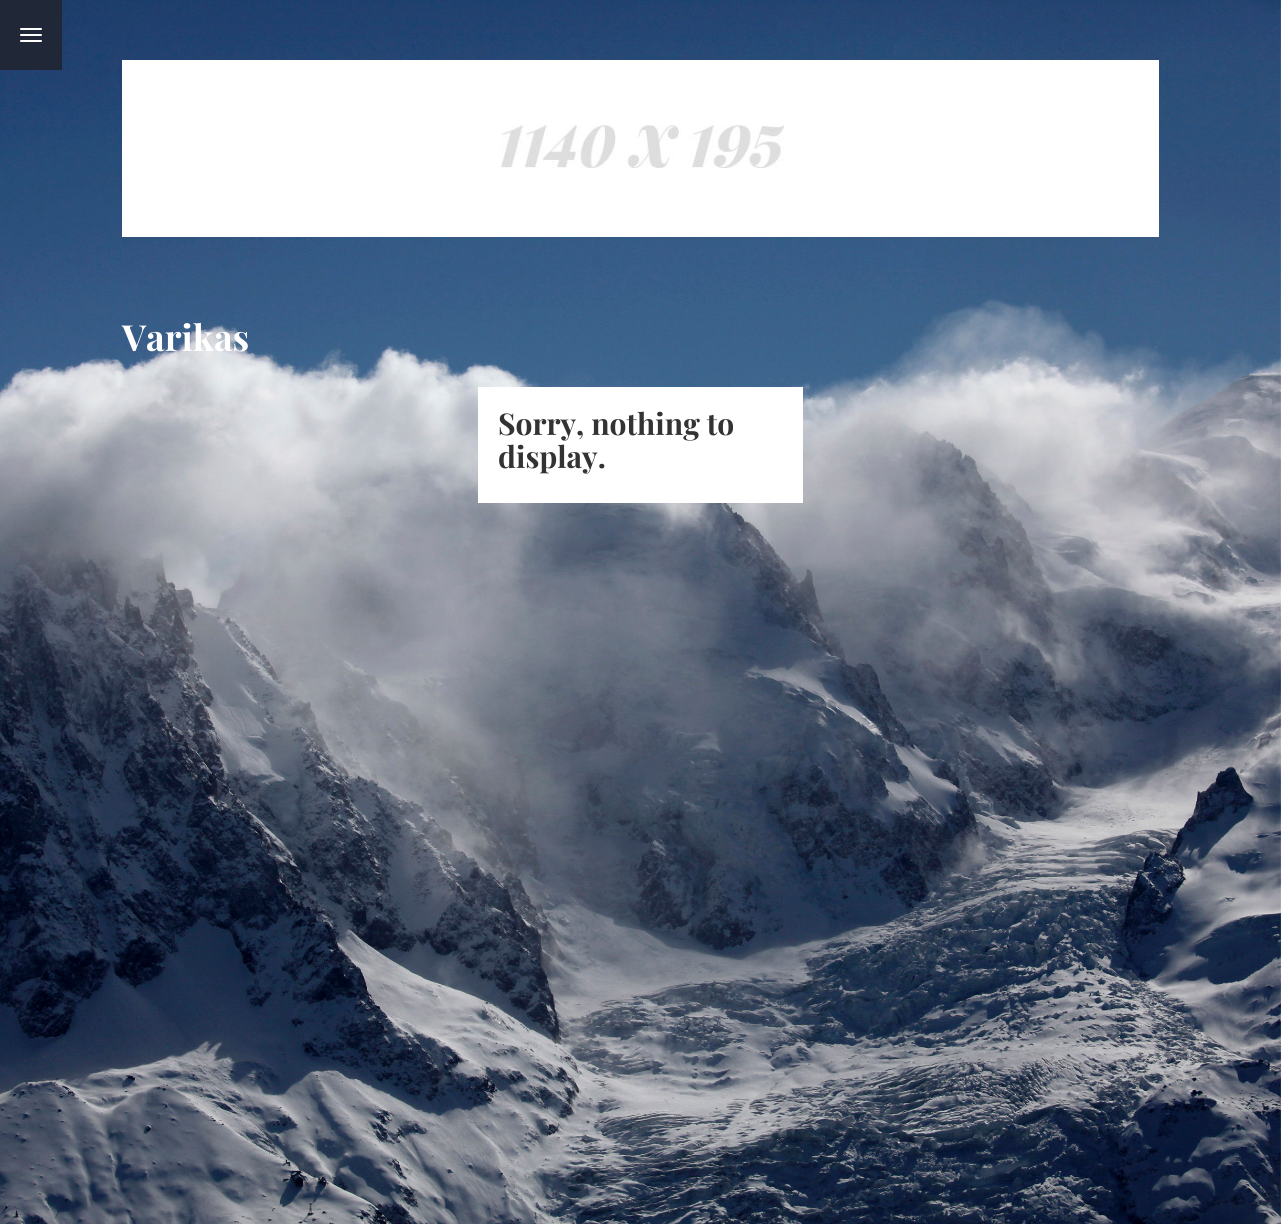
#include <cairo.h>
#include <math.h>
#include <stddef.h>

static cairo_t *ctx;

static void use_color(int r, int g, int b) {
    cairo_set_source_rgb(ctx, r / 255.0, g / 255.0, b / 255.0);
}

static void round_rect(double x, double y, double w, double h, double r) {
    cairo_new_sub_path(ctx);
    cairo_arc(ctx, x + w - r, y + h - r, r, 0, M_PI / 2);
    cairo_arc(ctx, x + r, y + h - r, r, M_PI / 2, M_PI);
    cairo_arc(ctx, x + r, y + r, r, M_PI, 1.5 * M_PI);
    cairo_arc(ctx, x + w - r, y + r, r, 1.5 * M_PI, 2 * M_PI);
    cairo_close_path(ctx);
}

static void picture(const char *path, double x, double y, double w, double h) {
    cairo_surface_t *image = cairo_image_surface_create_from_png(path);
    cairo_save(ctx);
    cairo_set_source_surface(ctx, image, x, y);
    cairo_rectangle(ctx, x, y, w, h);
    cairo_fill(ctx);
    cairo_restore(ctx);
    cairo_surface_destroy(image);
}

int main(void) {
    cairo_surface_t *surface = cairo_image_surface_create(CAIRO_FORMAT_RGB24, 1281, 1224);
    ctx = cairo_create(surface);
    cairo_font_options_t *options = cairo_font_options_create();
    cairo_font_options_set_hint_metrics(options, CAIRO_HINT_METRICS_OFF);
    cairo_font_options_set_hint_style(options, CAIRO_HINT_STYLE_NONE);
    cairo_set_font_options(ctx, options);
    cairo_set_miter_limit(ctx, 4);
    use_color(255, 255, 255);
    cairo_paint(ctx);
    picture("img1.png", 0, 0, 1281, 1224);
    use_color(32, 40, 56);
    cairo_rectangle(ctx, 0, 0, 62, 70);
    cairo_fill(ctx);
    use_color(255, 255, 255);
    round_rect(20, 28, 22, 2, 1);
    cairo_fill(ctx);
    round_rect(20, 34, 22, 2, 1);
    cairo_fill(ctx);
    round_rect(20, 40, 22, 2, 1);
    cairo_fill(ctx);
    picture("img2.png", 122, 60, 1037, 177);
    cairo_select_font_face(ctx, "Playfair Display", CAIRO_FONT_SLANT_NORMAL, CAIRO_FONT_WEIGHT_BOLD);
    cairo_set_font_size(ctx, 36);
    cairo_move_to(ctx, 122, 351);
    cairo_show_text(ctx, "Varikas");
    cairo_rectangle(ctx, 478, 387, 325, 116);
    cairo_fill(ctx);
    cairo_set_font_size(ctx, 30);
    use_color(51, 51, 51);
    cairo_move_to(ctx, 498, 435);
    cairo_show_text(ctx, "Sorry, nothing to");
    cairo_move_to(ctx, 498, 468);
    cairo_show_text(ctx, "display.");
    cairo_surface_write_to_png(surface, "result.png");
    cairo_font_options_destroy(options);
    cairo_destroy(ctx);
    cairo_surface_destroy(surface);
    return 0;
}
